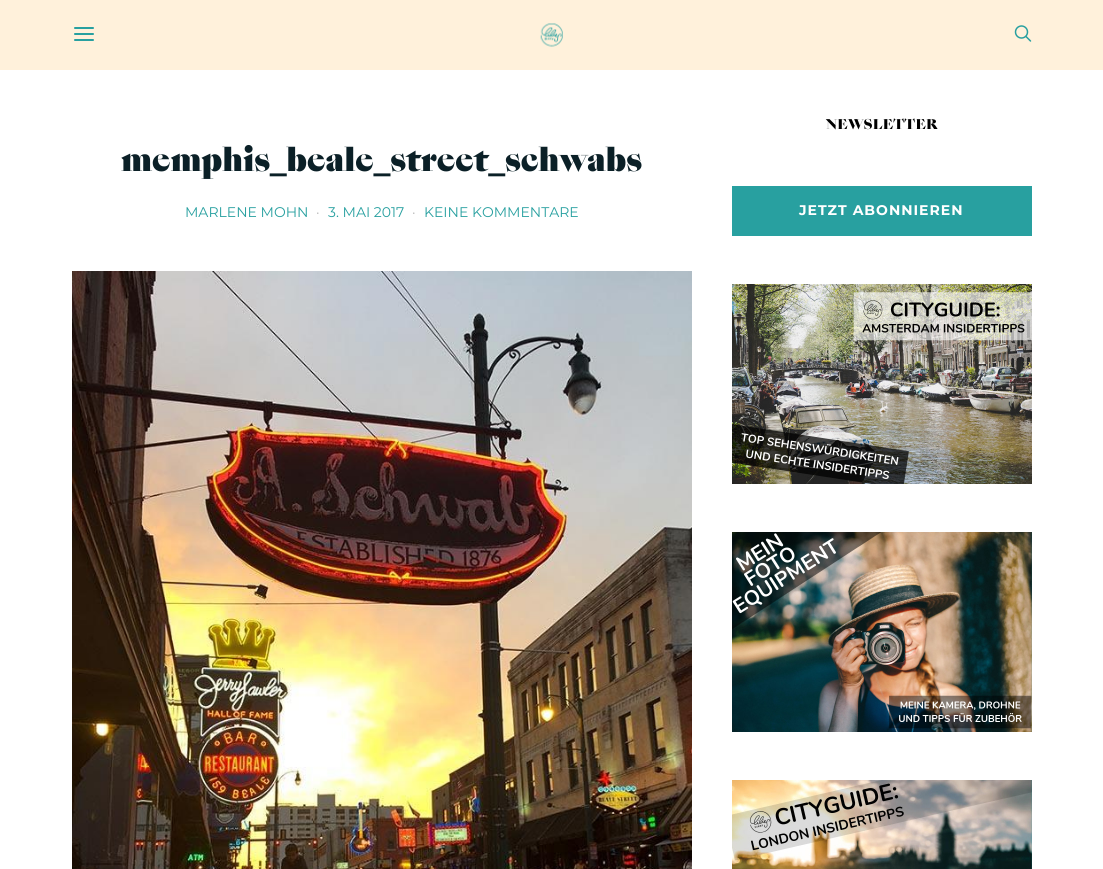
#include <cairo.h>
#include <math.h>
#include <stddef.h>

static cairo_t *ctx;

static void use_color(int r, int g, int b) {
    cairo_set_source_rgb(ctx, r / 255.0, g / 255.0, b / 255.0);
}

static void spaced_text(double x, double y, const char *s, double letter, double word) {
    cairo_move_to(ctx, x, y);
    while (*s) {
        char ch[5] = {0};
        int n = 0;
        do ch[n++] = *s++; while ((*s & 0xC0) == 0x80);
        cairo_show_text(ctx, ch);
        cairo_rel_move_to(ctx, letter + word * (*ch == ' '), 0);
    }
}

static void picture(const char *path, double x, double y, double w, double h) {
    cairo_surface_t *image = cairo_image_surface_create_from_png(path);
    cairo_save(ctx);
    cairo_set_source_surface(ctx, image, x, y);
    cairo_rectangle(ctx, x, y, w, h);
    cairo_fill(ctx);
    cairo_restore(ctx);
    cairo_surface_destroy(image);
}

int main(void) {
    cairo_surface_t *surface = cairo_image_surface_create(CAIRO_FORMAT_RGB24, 1103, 869);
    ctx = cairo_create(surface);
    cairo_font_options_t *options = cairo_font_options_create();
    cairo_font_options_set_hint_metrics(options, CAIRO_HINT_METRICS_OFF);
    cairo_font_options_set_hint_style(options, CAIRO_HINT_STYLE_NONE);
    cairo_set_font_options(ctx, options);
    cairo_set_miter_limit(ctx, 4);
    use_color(255, 255, 255);
    cairo_paint(ctx);
    use_color(255, 241, 219);
    cairo_rectangle(ctx, 0, 0, 1103, 70);
    cairo_fill(ctx);
    picture("img1.png", 74, 27, 20, 14);
    picture("img2.png", 540, 23, 23, 24);
    picture("img3.png", 1014, 25, 18, 17);
    cairo_select_font_face(ctx, "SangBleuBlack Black", CAIRO_FONT_SLANT_NORMAL, CAIRO_FONT_WEIGHT_NORMAL);
    cairo_set_font_size(ctx, 32);
    use_color(11, 32, 39);
    cairo_move_to(ctx, 121, 171);
    cairo_show_text(ctx, "memphis_beale_street_schwabs");
    cairo_select_font_face(ctx, "Montserrat", CAIRO_FONT_SLANT_NORMAL, CAIRO_FONT_WEIGHT_NORMAL);
    cairo_set_font_size(ctx, 14);
    use_color(40, 160, 160);
    cairo_move_to(ctx, 185, 217);
    cairo_show_text(ctx, "MARLENE MOHN");
    use_color(183, 183, 183);
    cairo_move_to(ctx, 316, 217);
    cairo_show_text(ctx, "·");
    use_color(40, 160, 160);
    cairo_move_to(ctx, 328, 217);
    cairo_show_text(ctx, "3. MAI 2017");
    use_color(183, 183, 183);
    cairo_move_to(ctx, 412, 217);
    cairo_show_text(ctx, "·");
    use_color(40, 160, 160);
    cairo_move_to(ctx, 424, 217);
    cairo_show_text(ctx, "KEINE KOMMENTARE");
    picture("img4.png", 72, 271, 620, 598);
    cairo_select_font_face(ctx, "SangBleuBlack Black", CAIRO_FONT_SLANT_NORMAL, CAIRO_FONT_WEIGHT_NORMAL);
    cairo_set_font_size(ctx, 13);
    use_color(0, 0, 0);
    spaced_text(826, 129, "NEWSLETTER", 0.25, 0);
    use_color(40, 160, 160);
    cairo_rectangle(ctx, 732, 186, 300, 50);
    cairo_fill(ctx);
    cairo_select_font_face(ctx, "Montserrat", CAIRO_FONT_SLANT_NORMAL, CAIRO_FONT_WEIGHT_BOLD);
    cairo_set_font_size(ctx, 14);
    use_color(255, 255, 255);
    spaced_text(799, 215, "JETZT ABONNIEREN", 1, 0);
    picture("img5.png", 732, 284, 300, 200);
    picture("img6.png", 732, 532, 300, 200);
    picture("img7.png", 732, 780, 300, 89);
    cairo_surface_write_to_png(surface, "result.png");
    cairo_font_options_destroy(options);
    cairo_destroy(ctx);
    cairo_surface_destroy(surface);
    return 0;
}
